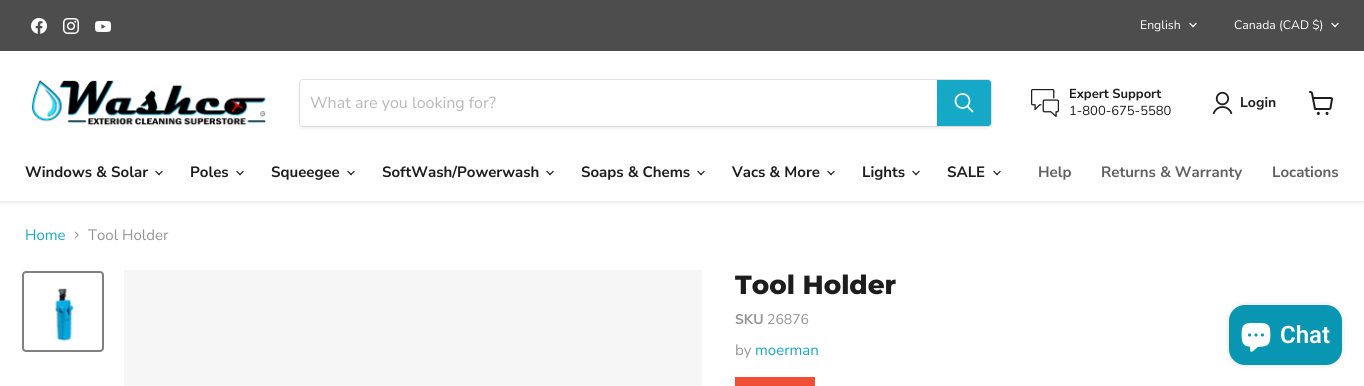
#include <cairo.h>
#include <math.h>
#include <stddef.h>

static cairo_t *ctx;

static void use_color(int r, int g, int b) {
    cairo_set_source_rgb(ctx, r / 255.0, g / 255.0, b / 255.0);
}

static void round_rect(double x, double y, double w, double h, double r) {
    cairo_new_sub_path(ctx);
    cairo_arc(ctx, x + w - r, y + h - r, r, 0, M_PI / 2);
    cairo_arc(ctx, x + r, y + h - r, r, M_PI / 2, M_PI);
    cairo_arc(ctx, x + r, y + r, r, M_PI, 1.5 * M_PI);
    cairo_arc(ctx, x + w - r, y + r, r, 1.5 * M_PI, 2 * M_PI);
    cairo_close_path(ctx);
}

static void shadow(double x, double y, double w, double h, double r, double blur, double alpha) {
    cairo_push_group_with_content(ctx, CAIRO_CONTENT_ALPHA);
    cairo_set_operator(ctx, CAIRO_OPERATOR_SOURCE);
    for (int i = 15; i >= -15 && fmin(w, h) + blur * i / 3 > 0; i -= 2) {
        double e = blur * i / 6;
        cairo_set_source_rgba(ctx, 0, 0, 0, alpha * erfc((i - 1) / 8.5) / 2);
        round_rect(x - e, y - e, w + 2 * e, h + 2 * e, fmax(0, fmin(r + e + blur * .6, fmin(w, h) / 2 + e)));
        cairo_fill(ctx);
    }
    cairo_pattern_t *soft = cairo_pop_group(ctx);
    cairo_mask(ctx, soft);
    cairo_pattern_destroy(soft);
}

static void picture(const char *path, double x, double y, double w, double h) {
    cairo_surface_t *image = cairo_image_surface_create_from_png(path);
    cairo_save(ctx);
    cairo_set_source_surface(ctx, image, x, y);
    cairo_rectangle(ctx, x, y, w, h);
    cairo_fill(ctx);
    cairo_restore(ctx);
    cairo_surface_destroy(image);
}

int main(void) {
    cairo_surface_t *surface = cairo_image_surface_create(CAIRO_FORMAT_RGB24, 1364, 386);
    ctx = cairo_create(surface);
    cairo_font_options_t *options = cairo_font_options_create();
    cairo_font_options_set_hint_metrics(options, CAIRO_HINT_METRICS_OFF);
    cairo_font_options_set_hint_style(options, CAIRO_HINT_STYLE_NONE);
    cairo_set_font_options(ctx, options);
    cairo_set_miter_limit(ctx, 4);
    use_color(255, 255, 255);
    cairo_paint(ctx);
    cairo_save(ctx);
    cairo_rectangle(ctx, 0, 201, 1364, 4);
    cairo_clip(ctx);
    use_color(128, 128, 128);
    shadow(0, 53, 1364, 149, 0, 2, 0.25);
    cairo_restore(ctx);
    use_color(77, 77, 77);
    cairo_rectangle(ctx, 0, 0, 1364, 51);
    cairo_fill(ctx);
    use_color(255, 255, 255);
    cairo_rectangle(ctx, 0, 51, 1364, 1);
    cairo_fill(ctx);
    picture("img1.png", 31, 18, 16, 16);
    picture("img2.png", 63, 18, 16, 16);
    picture("img3.png", 95, 21, 16, 11);
    cairo_select_font_face(ctx, "Nunito Sans", CAIRO_FONT_SLANT_NORMAL, CAIRO_FONT_WEIGHT_NORMAL);
    cairo_set_font_size(ctx, 12.25);
    cairo_move_to(ctx, 1140, 29);
    cairo_show_text(ctx, "English");
    picture("img4.png", 1189, 22, 8, 6);
    cairo_move_to(ctx, 1234, 29);
    cairo_show_text(ctx, "Canada (CAD $)");
    picture("img4.png", 1331, 22, 8, 6);
    picture("img5.png", 31, 80, 236, 46);
    use_color(128, 128, 128);
    shadow(299, 81, 693, 48, 4, 1.5, 0.11);
    round_rect(299.5, 79.5, 692, 47, 3.5);
    cairo_set_source_rgba(ctx, 0.502, 0.502, 0.502, 0.2);
    cairo_set_line_width(ctx, 1);
    cairo_stroke(ctx);
    use_color(255, 255, 255);
    cairo_new_path(ctx);
    cairo_move_to(ctx, 303, 80);
    cairo_line_to(ctx, 937, 80);
    cairo_line_to(ctx, 937, 126);
    cairo_line_to(ctx, 303, 126);
    cairo_curve_to(ctx, 301.5, 126, 300, 124.5, 300, 123);
    cairo_line_to(ctx, 300, 83);
    cairo_curve_to(ctx, 300, 81.5, 301.5, 80, 303, 80);
    cairo_close_path(ctx);
    cairo_fill(ctx);
    cairo_set_font_size(ctx, 16);
    use_color(184, 184, 184);
    cairo_move_to(ctx, 310, 108);
    cairo_show_text(ctx, "What are you looking for?");
    use_color(22, 169, 199);
    cairo_new_path(ctx);
    cairo_move_to(ctx, 937.5, 80.5);
    cairo_line_to(ctx, 988, 80.5);
    cairo_curve_to(ctx, 989.5, 80.5, 990.5, 81.5, 990.5, 83);
    cairo_line_to(ctx, 990.5, 123);
    cairo_curve_to(ctx, 990.5, 124.5, 989.5, 125.5, 988, 125.5);
    cairo_line_to(ctx, 937.5, 125.5);
    cairo_close_path(ctx);
    cairo_fill_preserve(ctx);
    cairo_stroke(ctx);
    cairo_new_path(ctx);
    cairo_move_to(ctx, 972.5, 111.5);
    cairo_line_to(ctx, 967.5, 106.5);
    use_color(255, 255, 255);
    cairo_set_line_width(ctx, 1.7);
    cairo_set_line_cap(ctx, CAIRO_LINE_CAP_ROUND);
    cairo_stroke(ctx);
    cairo_arc(ctx, 962.5, 101, 7, 0, 2 * M_PI);
    cairo_set_line_cap(ctx, CAIRO_LINE_CAP_BUTT);
    cairo_stroke(ctx);
    picture("img6.png", 1031, 89, 28, 28);
    cairo_select_font_face(ctx, "Nunito Sans", CAIRO_FONT_SLANT_NORMAL, CAIRO_FONT_WEIGHT_BOLD);
    cairo_set_font_size(ctx, 13);
    use_color(29, 29, 29);
    cairo_move_to(ctx, 1069, 98);
    cairo_show_text(ctx, "Expert Support");
    cairo_select_font_face(ctx, "Nunito Sans", CAIRO_FONT_SLANT_NORMAL, CAIRO_FONT_WEIGHT_NORMAL);
    cairo_move_to(ctx, 1069, 115);
    cairo_show_text(ctx, "1-800-675-5580");
    picture("img7.png", 1212, 91, 21, 24);
    cairo_select_font_face(ctx, "Nunito Sans", CAIRO_FONT_SLANT_NORMAL, CAIRO_FONT_WEIGHT_BOLD);
    cairo_set_font_size(ctx, 14);
    cairo_move_to(ctx, 1240, 107);
    cairo_show_text(ctx, "Login");
    picture("img8.png", 1309, 91, 24, 24);
    cairo_set_font_size(ctx, 15);
    cairo_move_to(ctx, 25, 177);
    cairo_show_text(ctx, "Windows & Solar");
    picture("img9.png", 155, 170, 8, 6);
    cairo_move_to(ctx, 190, 177);
    cairo_show_text(ctx, "Poles");
    picture("img9.png", 236, 170, 8, 6);
    cairo_move_to(ctx, 271, 177);
    cairo_show_text(ctx, "Squeegee");
    picture("img9.png", 347, 170, 8, 6);
    cairo_move_to(ctx, 382, 177);
    cairo_show_text(ctx, "SoftWash/Powerwash");
    picture("img9.png", 546, 170, 8, 6);
    cairo_move_to(ctx, 581, 177);
    cairo_show_text(ctx, "Soaps & Chems");
    picture("img9.png", 697, 170, 8, 6);
    cairo_move_to(ctx, 732, 177);
    cairo_show_text(ctx, "Vacs & More");
    picture("img9.png", 827, 170, 8, 6);
    cairo_move_to(ctx, 862, 177);
    cairo_show_text(ctx, "Lights");
    picture("img9.png", 912, 170, 8, 6);
    cairo_move_to(ctx, 947, 177);
    cairo_show_text(ctx, "SALE");
    picture("img9.png", 993, 170, 8, 6);
    use_color(97, 97, 97);
    cairo_move_to(ctx, 1038, 177);
    cairo_show_text(ctx, "Help");
    cairo_move_to(ctx, 1101, 177);
    cairo_show_text(ctx, "Returns & Warranty");
    cairo_move_to(ctx, 1272, 177);
    cairo_show_text(ctx, "Locations");
    cairo_select_font_face(ctx, "Nunito Sans", CAIRO_FONT_SLANT_NORMAL, CAIRO_FONT_WEIGHT_NORMAL);
    use_color(22, 169, 199);
    cairo_move_to(ctx, 25, 240);
    cairo_show_text(ctx, "Home");
    picture("img10.png", 74, 231, 5, 8);
    use_color(148, 148, 148);
    cairo_move_to(ctx, 88, 240);
    cairo_show_text(ctx, "Tool Holder");
    round_rect(23, 272, 80, 79, 3);
    use_color(129, 129, 129);
    cairo_set_line_width(ctx, 2);
    cairo_stroke(ctx);
    picture("img11.png", 53, 288, 27, 55);
    use_color(246, 246, 246);
    cairo_rectangle(ctx, 124, 270, 578, 116);
    cairo_fill(ctx);
    cairo_select_font_face(ctx, "Montserrat ExtraBold", CAIRO_FONT_SLANT_NORMAL, CAIRO_FONT_WEIGHT_NORMAL);
    cairo_set_font_size(ctx, 26.25);
    use_color(29, 29, 29);
    cairo_move_to(ctx, 735, 294);
    cairo_show_text(ctx, "Tool Holder");
    cairo_select_font_face(ctx, "Nunito Sans", CAIRO_FONT_SLANT_NORMAL, CAIRO_FONT_WEIGHT_BOLD);
    cairo_set_font_size(ctx, 14);
    use_color(148, 148, 148);
    cairo_move_to(ctx, 735, 324);
    cairo_show_text(ctx, "SKU");
    cairo_select_font_face(ctx, "Nunito Sans", CAIRO_FONT_SLANT_NORMAL, CAIRO_FONT_WEIGHT_NORMAL);
    cairo_move_to(ctx, 767, 324);
    cairo_show_text(ctx, "26876");
    cairo_set_font_size(ctx, 15);
    cairo_move_to(ctx, 735, 355);
    cairo_show_text(ctx, "by");
    use_color(22, 169, 199);
    cairo_move_to(ctx, 755, 355);
    cairo_show_text(ctx, "moerman");
    use_color(240, 79, 54);
    cairo_rectangle(ctx, 735, 377, 80, 9);
    cairo_fill(ctx);
    use_color(0, 0, 0);
    shadow(1229, 305, 113, 60, 16, 2.5, 0.15);
    use_color(9, 150, 179);
    round_rect(1229, 305, 113, 60, 16);
    cairo_fill(ctx);
    picture("img12.png", 1241, 323, 30, 29);
    cairo_select_font_face(ctx, "Roboto SemiBold", CAIRO_FONT_SLANT_NORMAL, CAIRO_FONT_WEIGHT_NORMAL);
    cairo_set_font_size(ctx, 24);
    use_color(255, 255, 255);
    cairo_move_to(ctx, 1280, 343);
    cairo_show_text(ctx, "Chat");
    cairo_surface_write_to_png(surface, "result.png");
    cairo_font_options_destroy(options);
    cairo_destroy(ctx);
    cairo_surface_destroy(surface);
    return 0;
}
